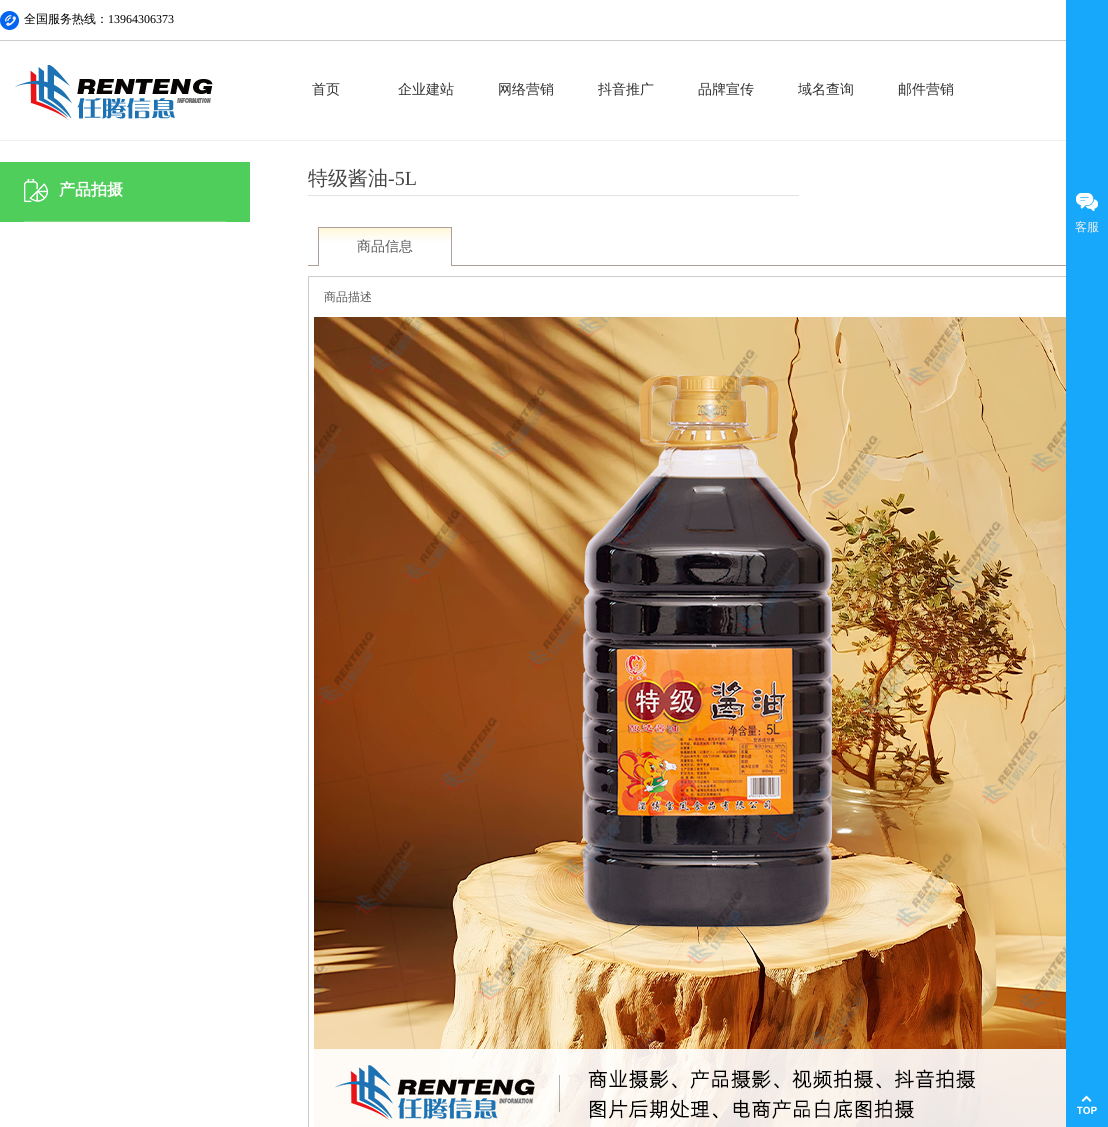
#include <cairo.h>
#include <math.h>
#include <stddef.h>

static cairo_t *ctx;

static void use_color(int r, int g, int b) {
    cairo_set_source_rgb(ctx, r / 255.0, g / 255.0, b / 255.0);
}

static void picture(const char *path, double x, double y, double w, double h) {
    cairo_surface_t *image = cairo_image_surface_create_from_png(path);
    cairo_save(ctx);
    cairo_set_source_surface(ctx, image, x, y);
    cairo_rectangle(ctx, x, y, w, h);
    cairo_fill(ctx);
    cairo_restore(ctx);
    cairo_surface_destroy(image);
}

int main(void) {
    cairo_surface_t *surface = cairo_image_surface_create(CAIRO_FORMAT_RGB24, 1108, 1127);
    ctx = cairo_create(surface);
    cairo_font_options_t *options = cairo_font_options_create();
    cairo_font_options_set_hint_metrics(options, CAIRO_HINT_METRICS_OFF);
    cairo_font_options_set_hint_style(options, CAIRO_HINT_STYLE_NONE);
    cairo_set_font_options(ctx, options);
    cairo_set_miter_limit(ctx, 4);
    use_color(255, 255, 255);
    cairo_paint(ctx);
    picture("img1.png", 0, 11, 19, 19);
    cairo_select_font_face(ctx, "WenQuanYi Zen Hei Medium", CAIRO_FONT_SLANT_NORMAL, CAIRO_FONT_WEIGHT_NORMAL);
    cairo_set_font_size(ctx, 12);
    use_color(0, 0, 0);
    cairo_move_to(ctx, 24, 23);
    cairo_show_text(ctx, "全国服务热线：");
    cairo_select_font_face(ctx, "Liberation Serif", CAIRO_FONT_SLANT_NORMAL, CAIRO_FONT_WEIGHT_NORMAL);
    cairo_move_to(ctx, 108, 23);
    cairo_show_text(ctx, "13964306373");
    use_color(204, 204, 204);
    cairo_rectangle(ctx, 0, 40, 1066, 1);
    cairo_fill(ctx);
    picture("img2.png", 15, 65, 198, 55);
    cairo_select_font_face(ctx, "WenQuanYi Zen Hei Medium", CAIRO_FONT_SLANT_NORMAL, CAIRO_FONT_WEIGHT_NORMAL);
    cairo_set_font_size(ctx, 14);
    use_color(48, 48, 48);
    cairo_move_to(ctx, 312, 94);
    cairo_show_text(ctx, "首页");
    cairo_move_to(ctx, 398, 94);
    cairo_show_text(ctx, "企业建站");
    cairo_move_to(ctx, 498, 94);
    cairo_show_text(ctx, "网络营销");
    cairo_move_to(ctx, 598, 94);
    cairo_show_text(ctx, "抖音推广");
    cairo_move_to(ctx, 698, 94);
    cairo_show_text(ctx, "品牌宣传");
    cairo_move_to(ctx, 798, 94);
    cairo_show_text(ctx, "域名查询");
    cairo_move_to(ctx, 898, 94);
    cairo_show_text(ctx, "邮件营销");
    use_color(238, 238, 238);
    cairo_rectangle(ctx, 0, 140, 1066, 1);
    cairo_fill(ctx);
    use_color(79, 206, 91);
    cairo_rectangle(ctx, 0, 162, 250, 60);
    cairo_fill(ctx);
    use_color(127, 215, 131);
    cairo_rectangle(ctx, 24, 221, 202, 1);
    cairo_fill(ctx);
    picture("img3.png", 24, 179, 24, 23);
    cairo_select_font_face(ctx, "WenQuanYi Zen Hei", CAIRO_FONT_SLANT_NORMAL, CAIRO_FONT_WEIGHT_BOLD);
    cairo_set_font_size(ctx, 16);
    use_color(255, 255, 255);
    cairo_move_to(ctx, 59, 195);
    cairo_show_text(ctx, "产品拍摄");
    use_color(226, 226, 226);
    cairo_rectangle(ctx, 308, 195, 491, 1);
    cairo_fill(ctx);
    cairo_select_font_face(ctx, "WenQuanYi Zen Hei Medium", CAIRO_FONT_SLANT_NORMAL, CAIRO_FONT_WEIGHT_NORMAL);
    cairo_set_font_size(ctx, 20);
    use_color(69, 69, 69);
    cairo_move_to(ctx, 308, 185);
    cairo_show_text(ctx, "特级酱油");
    cairo_select_font_face(ctx, "Liberation Serif", CAIRO_FONT_SLANT_NORMAL, CAIRO_FONT_WEIGHT_NORMAL);
    cairo_move_to(ctx, 388, 185);
    cairo_show_text(ctx, "-5L");
    use_color(170, 160, 153);
    cairo_rectangle(ctx, 308, 265, 758, 1);
    cairo_fill(ctx);
    picture("img4.png", 318, 227, 134, 39);
    cairo_select_font_face(ctx, "WenQuanYi Zen Hei Medium", CAIRO_FONT_SLANT_NORMAL, CAIRO_FONT_WEIGHT_NORMAL);
    cairo_set_font_size(ctx, 14);
    use_color(90, 90, 90);
    cairo_move_to(ctx, 357, 251);
    cairo_show_text(ctx, "商品信息");
    cairo_rectangle(ctx, 308.5, 276.5, 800, 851);
    use_color(204, 204, 204);
    cairo_set_line_width(ctx, 1);
    cairo_stroke(ctx);
    cairo_set_font_size(ctx, 12);
    use_color(90, 90, 90);
    cairo_move_to(ctx, 324, 301);
    cairo_show_text(ctx, "商品描述");
    picture("img5.png", 314, 317, 752, 810);
    use_color(23, 168, 251);
    cairo_rectangle(ctx, 1066, 0, 42, 1127);
    cairo_fill(ctx);
    picture("img6.png", 1076, 193, 22, 18);
    use_color(239, 239, 239);
    cairo_move_to(ctx, 1075, 231);
    cairo_show_text(ctx, "客服");
    picture("img7.png", 1077, 1095, 20, 19);
    cairo_surface_write_to_png(surface, "result.png");
    cairo_font_options_destroy(options);
    cairo_destroy(ctx);
    cairo_surface_destroy(surface);
    return 0;
}
